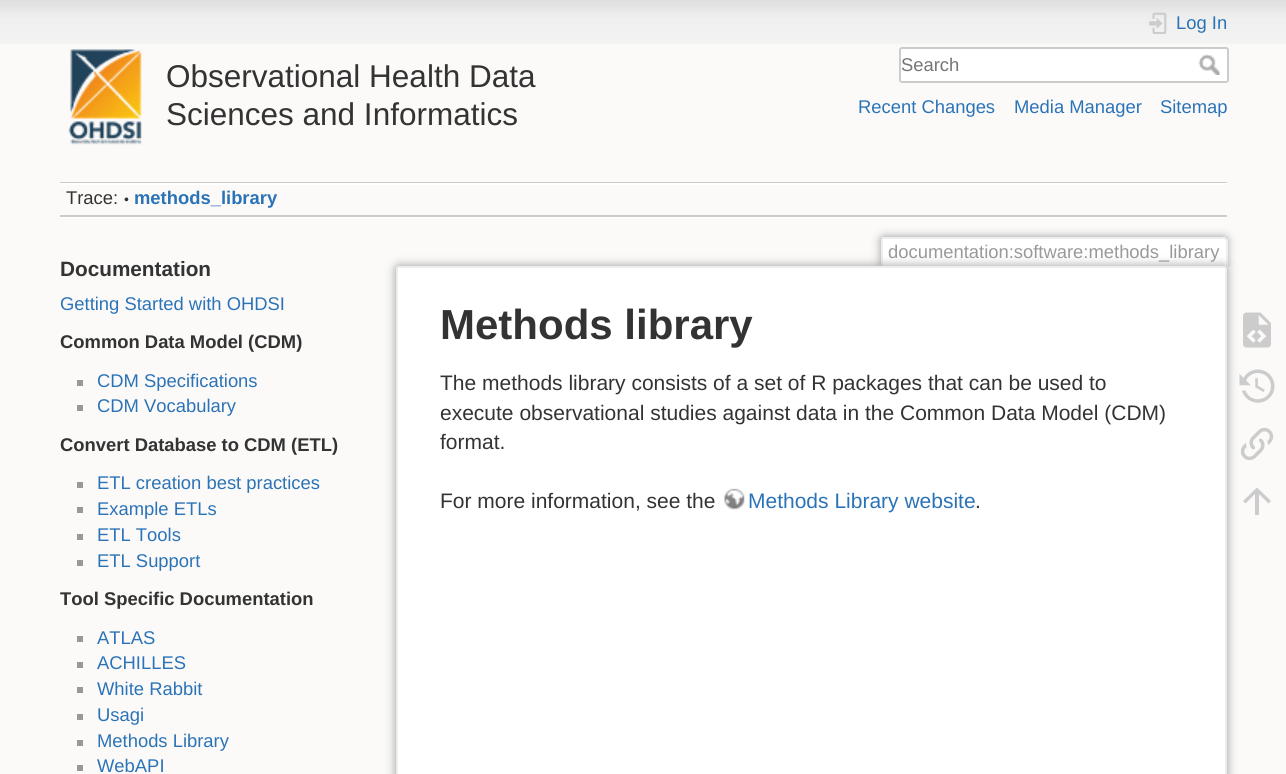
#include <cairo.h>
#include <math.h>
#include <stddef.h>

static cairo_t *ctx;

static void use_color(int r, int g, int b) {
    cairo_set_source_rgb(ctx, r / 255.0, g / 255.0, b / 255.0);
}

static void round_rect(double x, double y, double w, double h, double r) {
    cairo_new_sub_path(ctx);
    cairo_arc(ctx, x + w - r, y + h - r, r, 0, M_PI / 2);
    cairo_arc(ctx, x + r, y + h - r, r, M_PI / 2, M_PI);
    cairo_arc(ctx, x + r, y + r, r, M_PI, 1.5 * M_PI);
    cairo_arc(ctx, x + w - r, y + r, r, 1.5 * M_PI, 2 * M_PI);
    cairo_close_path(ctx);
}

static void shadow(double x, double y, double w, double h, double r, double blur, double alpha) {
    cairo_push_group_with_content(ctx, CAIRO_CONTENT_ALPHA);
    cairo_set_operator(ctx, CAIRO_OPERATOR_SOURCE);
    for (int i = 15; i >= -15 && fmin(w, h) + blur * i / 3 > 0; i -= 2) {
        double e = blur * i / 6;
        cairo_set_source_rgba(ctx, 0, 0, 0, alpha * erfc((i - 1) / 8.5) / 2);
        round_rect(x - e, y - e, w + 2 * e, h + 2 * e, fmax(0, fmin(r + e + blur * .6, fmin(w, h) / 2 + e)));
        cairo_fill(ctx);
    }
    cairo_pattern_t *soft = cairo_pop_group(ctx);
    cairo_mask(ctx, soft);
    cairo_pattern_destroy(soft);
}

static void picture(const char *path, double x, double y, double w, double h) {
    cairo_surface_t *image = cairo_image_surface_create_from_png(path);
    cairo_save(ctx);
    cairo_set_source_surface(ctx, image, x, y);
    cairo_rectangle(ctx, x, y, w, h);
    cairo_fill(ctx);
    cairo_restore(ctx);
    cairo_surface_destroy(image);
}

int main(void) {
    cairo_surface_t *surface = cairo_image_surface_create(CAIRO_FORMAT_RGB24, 1286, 774);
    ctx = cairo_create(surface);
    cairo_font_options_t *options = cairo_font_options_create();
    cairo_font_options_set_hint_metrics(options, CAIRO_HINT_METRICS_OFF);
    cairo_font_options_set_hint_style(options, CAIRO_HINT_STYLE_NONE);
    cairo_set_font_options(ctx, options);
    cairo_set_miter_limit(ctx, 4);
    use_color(251, 250, 249);
    cairo_paint(ctx);
    picture("img1.png", 0, 0, 1286, 44);
    picture("img2.png", 68, 49, 74, 96);
    cairo_select_font_face(ctx, "Liberation Sans", CAIRO_FONT_SLANT_NORMAL, CAIRO_FONT_WEIGHT_NORMAL);
    cairo_set_font_size(ctx, 31.5);
    use_color(51, 51, 51);
    cairo_move_to(ctx, 166, 87);
    cairo_show_text(ctx, "Observational Health Data");
    cairo_move_to(ctx, 166, 125);
    cairo_show_text(ctx, "Sciences and Informatics");
    picture("img3.png", 1149, 12, 18, 22);
    cairo_set_font_size(ctx, 18.4);
    use_color(43, 115, 183);
    cairo_move_to(ctx, 1176, 29);
    cairo_show_text(ctx, "Log In");
    use_color(255, 255, 255);
    round_rect(900, 48, 328, 34, 2);
    cairo_fill_preserve(ctx);
    use_color(204, 204, 204);
    cairo_stroke(ctx);
    use_color(117, 117, 117);
    cairo_move_to(ctx, 901, 71);
    cairo_show_text(ctx, "Search");
    picture("img4.png", 1198, 54, 22, 21);
    use_color(43, 115, 183);
    cairo_move_to(ctx, 858, 113);
    cairo_show_text(ctx, "Recent Changes");
    cairo_move_to(ctx, 1014, 113);
    cairo_show_text(ctx, "Media Manager");
    cairo_move_to(ctx, 1160, 113);
    cairo_show_text(ctx, "Sitemap");
    use_color(204, 204, 204);
    cairo_rectangle(ctx, 60, 182, 1167, 1);
    cairo_fill(ctx);
    use_color(255, 255, 255);
    cairo_rectangle(ctx, 60, 217, 1167, 1);
    cairo_fill(ctx);
    cairo_rectangle(ctx, 60, 183, 1167, 2);
    cairo_fill(ctx);
    use_color(204, 204, 204);
    cairo_rectangle(ctx, 60, 215, 1167, 2);
    cairo_fill(ctx);
    use_color(51, 51, 51);
    cairo_move_to(ctx, 66, 204);
    cairo_show_text(ctx, "Trace:");
    cairo_set_font_size(ctx, 14);
    cairo_move_to(ctx, 124, 204);
    cairo_show_text(ctx, "•");
    cairo_select_font_face(ctx, "Liberation Sans", CAIRO_FONT_SLANT_NORMAL, CAIRO_FONT_WEIGHT_BOLD);
    cairo_set_font_size(ctx, 18.4);
    use_color(43, 115, 183);
    cairo_move_to(ctx, 134, 204);
    cairo_show_text(ctx, "methods_library");
    cairo_set_font_size(ctx, 20.75);
    use_color(51, 51, 51);
    cairo_move_to(ctx, 60, 276);
    cairo_show_text(ctx, "Documentation");
    cairo_select_font_face(ctx, "Liberation Sans", CAIRO_FONT_SLANT_NORMAL, CAIRO_FONT_WEIGHT_NORMAL);
    cairo_set_font_size(ctx, 18.4);
    use_color(43, 115, 183);
    cairo_move_to(ctx, 60, 310);
    cairo_show_text(ctx, "Getting Started with OHDSI");
    cairo_select_font_face(ctx, "Liberation Sans", CAIRO_FONT_SLANT_NORMAL, CAIRO_FONT_WEIGHT_BOLD);
    use_color(51, 51, 51);
    cairo_move_to(ctx, 60, 348);
    cairo_show_text(ctx, "Common Data Model (CDM)");
    use_color(153, 153, 153);
    cairo_rectangle(ctx, 77, 380, 6, 6);
    cairo_fill(ctx);
    cairo_select_font_face(ctx, "Liberation Sans", CAIRO_FONT_SLANT_NORMAL, CAIRO_FONT_WEIGHT_NORMAL);
    use_color(43, 115, 183);
    cairo_move_to(ctx, 97, 387);
    cairo_show_text(ctx, "CDM Specifications");
    use_color(153, 153, 153);
    cairo_rectangle(ctx, 77, 405, 6, 6);
    cairo_fill(ctx);
    use_color(43, 115, 183);
    cairo_move_to(ctx, 97, 412);
    cairo_show_text(ctx, "CDM Vocabulary");
    cairo_select_font_face(ctx, "Liberation Sans", CAIRO_FONT_SLANT_NORMAL, CAIRO_FONT_WEIGHT_BOLD);
    use_color(51, 51, 51);
    cairo_move_to(ctx, 60, 451);
    cairo_show_text(ctx, "Convert Database to CDM (ETL)");
    use_color(153, 153, 153);
    cairo_rectangle(ctx, 77, 482, 6, 6);
    cairo_fill(ctx);
    cairo_select_font_face(ctx, "Liberation Sans", CAIRO_FONT_SLANT_NORMAL, CAIRO_FONT_WEIGHT_NORMAL);
    use_color(43, 115, 183);
    cairo_move_to(ctx, 97, 489);
    cairo_show_text(ctx, "ETL creation best practices");
    use_color(153, 153, 153);
    cairo_rectangle(ctx, 77, 507, 6, 6);
    cairo_fill(ctx);
    use_color(43, 115, 183);
    cairo_move_to(ctx, 97, 515);
    cairo_show_text(ctx, "Example ETLs");
    use_color(153, 153, 153);
    cairo_rectangle(ctx, 77, 534, 6, 6);
    cairo_fill(ctx);
    use_color(43, 115, 183);
    cairo_move_to(ctx, 97, 541);
    cairo_show_text(ctx, "ETL Tools");
    use_color(153, 153, 153);
    cairo_rectangle(ctx, 77, 560, 6, 6);
    cairo_fill(ctx);
    use_color(43, 115, 183);
    cairo_move_to(ctx, 97, 567);
    cairo_show_text(ctx, "ETL Support");
    cairo_select_font_face(ctx, "Liberation Sans", CAIRO_FONT_SLANT_NORMAL, CAIRO_FONT_WEIGHT_BOLD);
    use_color(51, 51, 51);
    cairo_move_to(ctx, 60, 605);
    cairo_show_text(ctx, "Tool Specific Documentation");
    use_color(153, 153, 153);
    cairo_rectangle(ctx, 77, 636, 6, 6);
    cairo_fill(ctx);
    cairo_select_font_face(ctx, "Liberation Sans", CAIRO_FONT_SLANT_NORMAL, CAIRO_FONT_WEIGHT_NORMAL);
    use_color(43, 115, 183);
    cairo_move_to(ctx, 97, 644);
    cairo_show_text(ctx, "ATLAS");
    use_color(153, 153, 153);
    cairo_rectangle(ctx, 77, 662, 6, 6);
    cairo_fill(ctx);
    use_color(43, 115, 183);
    cairo_move_to(ctx, 97, 669);
    cairo_show_text(ctx, "ACHILLES");
    use_color(153, 153, 153);
    cairo_rectangle(ctx, 77, 687, 6, 6);
    cairo_fill(ctx);
    use_color(43, 115, 183);
    cairo_move_to(ctx, 97, 695);
    cairo_show_text(ctx, "White Rabbit");
    use_color(153, 153, 153);
    cairo_rectangle(ctx, 77, 714, 6, 6);
    cairo_fill(ctx);
    use_color(43, 115, 183);
    cairo_move_to(ctx, 97, 721);
    cairo_show_text(ctx, "Usagi");
    use_color(153, 153, 153);
    cairo_rectangle(ctx, 77, 740, 6, 6);
    cairo_fill(ctx);
    use_color(43, 115, 183);
    cairo_move_to(ctx, 97, 747);
    cairo_show_text(ctx, "Methods Library");
    use_color(153, 153, 153);
    cairo_rectangle(ctx, 77, 765, 6, 6);
    cairo_fill(ctx);
    use_color(43, 115, 183);
    cairo_move_to(ctx, 97, 772);
    cairo_show_text(ctx, "WebAPI");
    cairo_save(ctx);
    cairo_rectangle(ctx, 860, 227, 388, 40);
    cairo_clip(ctx);
    use_color(153, 153, 153);
    shadow(881, 237, 346, 30, 3, 4.5, 1);
    cairo_restore(ctx);
    use_color(255, 255, 255);
    cairo_new_path(ctx);
    cairo_move_to(ctx, 883.5, 239);
    cairo_line_to(ctx, 1224.5, 239);
    cairo_curve_to(ctx, 1225.5, 239, 1226, 239.5, 1226, 240.5);
    cairo_line_to(ctx, 1226, 267);
    cairo_line_to(ctx, 882, 267);
    cairo_line_to(ctx, 882, 240.5);
    cairo_curve_to(ctx, 882, 239.5, 882.5, 239, 883.5, 239);
    cairo_close_path(ctx);
    cairo_fill(ctx);
    use_color(238, 238, 238);
    cairo_rectangle(ctx, 882, 237, 344, 2);
    cairo_fill(ctx);
    cairo_rectangle(ctx, 1226, 239, 2, 28);
    cairo_fill(ctx);
    cairo_rectangle(ctx, 881, 239, 2, 28);
    cairo_fill(ctx);
    use_color(153, 153, 153);
    cairo_move_to(ctx, 888, 258);
    cairo_show_text(ctx, "documentation:software:methods_library");
    use_color(153, 153, 153);
    shadow(396, 266, 831, 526, 3, 5, 1);
    use_color(255, 255, 255);
    round_rect(397, 267, 829, 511, 2);
    cairo_fill_preserve(ctx);
    use_color(238, 238, 238);
    cairo_stroke(ctx);
    cairo_select_font_face(ctx, "Liberation Sans", CAIRO_FONT_SLANT_NORMAL, CAIRO_FONT_WEIGHT_BOLD);
    cairo_set_font_size(ctx, 42);
    use_color(51, 51, 51);
    cairo_move_to(ctx, 440, 339);
    cairo_show_text(ctx, "Methods library");
    cairo_select_font_face(ctx, "Liberation Sans", CAIRO_FONT_SLANT_NORMAL, CAIRO_FONT_WEIGHT_NORMAL);
    cairo_set_font_size(ctx, 21);
    cairo_move_to(ctx, 440, 390);
    cairo_show_text(ctx, "The methods library consists of a set of R packages that can be used to");
    cairo_move_to(ctx, 440, 420);
    cairo_show_text(ctx, "execute observational studies against data in the Common Data Model (CDM)");
    cairo_move_to(ctx, 440, 449);
    cairo_show_text(ctx, "format.");
    cairo_move_to(ctx, 440, 508);
    cairo_show_text(ctx, "For more information, see the");
    picture("img5.png", 724, 488, 21, 23);
    use_color(43, 115, 183);
    cairo_move_to(ctx, 748, 508);
    cairo_show_text(ctx, "Methods Library website");
    use_color(51, 51, 51);
    cairo_move_to(ctx, 975, 508);
    cairo_show_text(ctx, ".");
    picture("img6.png", 1243, 312, 28, 36);
    picture("img7.png", 1239, 369, 36, 34);
    picture("img8.png", 1240, 427, 34, 34);
    use_color(204, 204, 204);
    cairo_new_path(ctx);
    cairo_move_to(ctx, 1259, 515);
    cairo_line_to(ctx, 1255, 515);
    cairo_line_to(ctx, 1255, 494);
    cairo_line_to(ctx, 1245.5, 503.5);
    cairo_line_to(ctx, 1243, 501);
    cairo_line_to(ctx, 1257, 487.5);
    cairo_line_to(ctx, 1271, 501);
    cairo_line_to(ctx, 1268.5, 503.5);
    cairo_line_to(ctx, 1259, 494);
    cairo_close_path(ctx);
    cairo_fill(ctx);
    cairo_surface_write_to_png(surface, "result.png");
    cairo_font_options_destroy(options);
    cairo_destroy(ctx);
    cairo_surface_destroy(surface);
    return 0;
}
